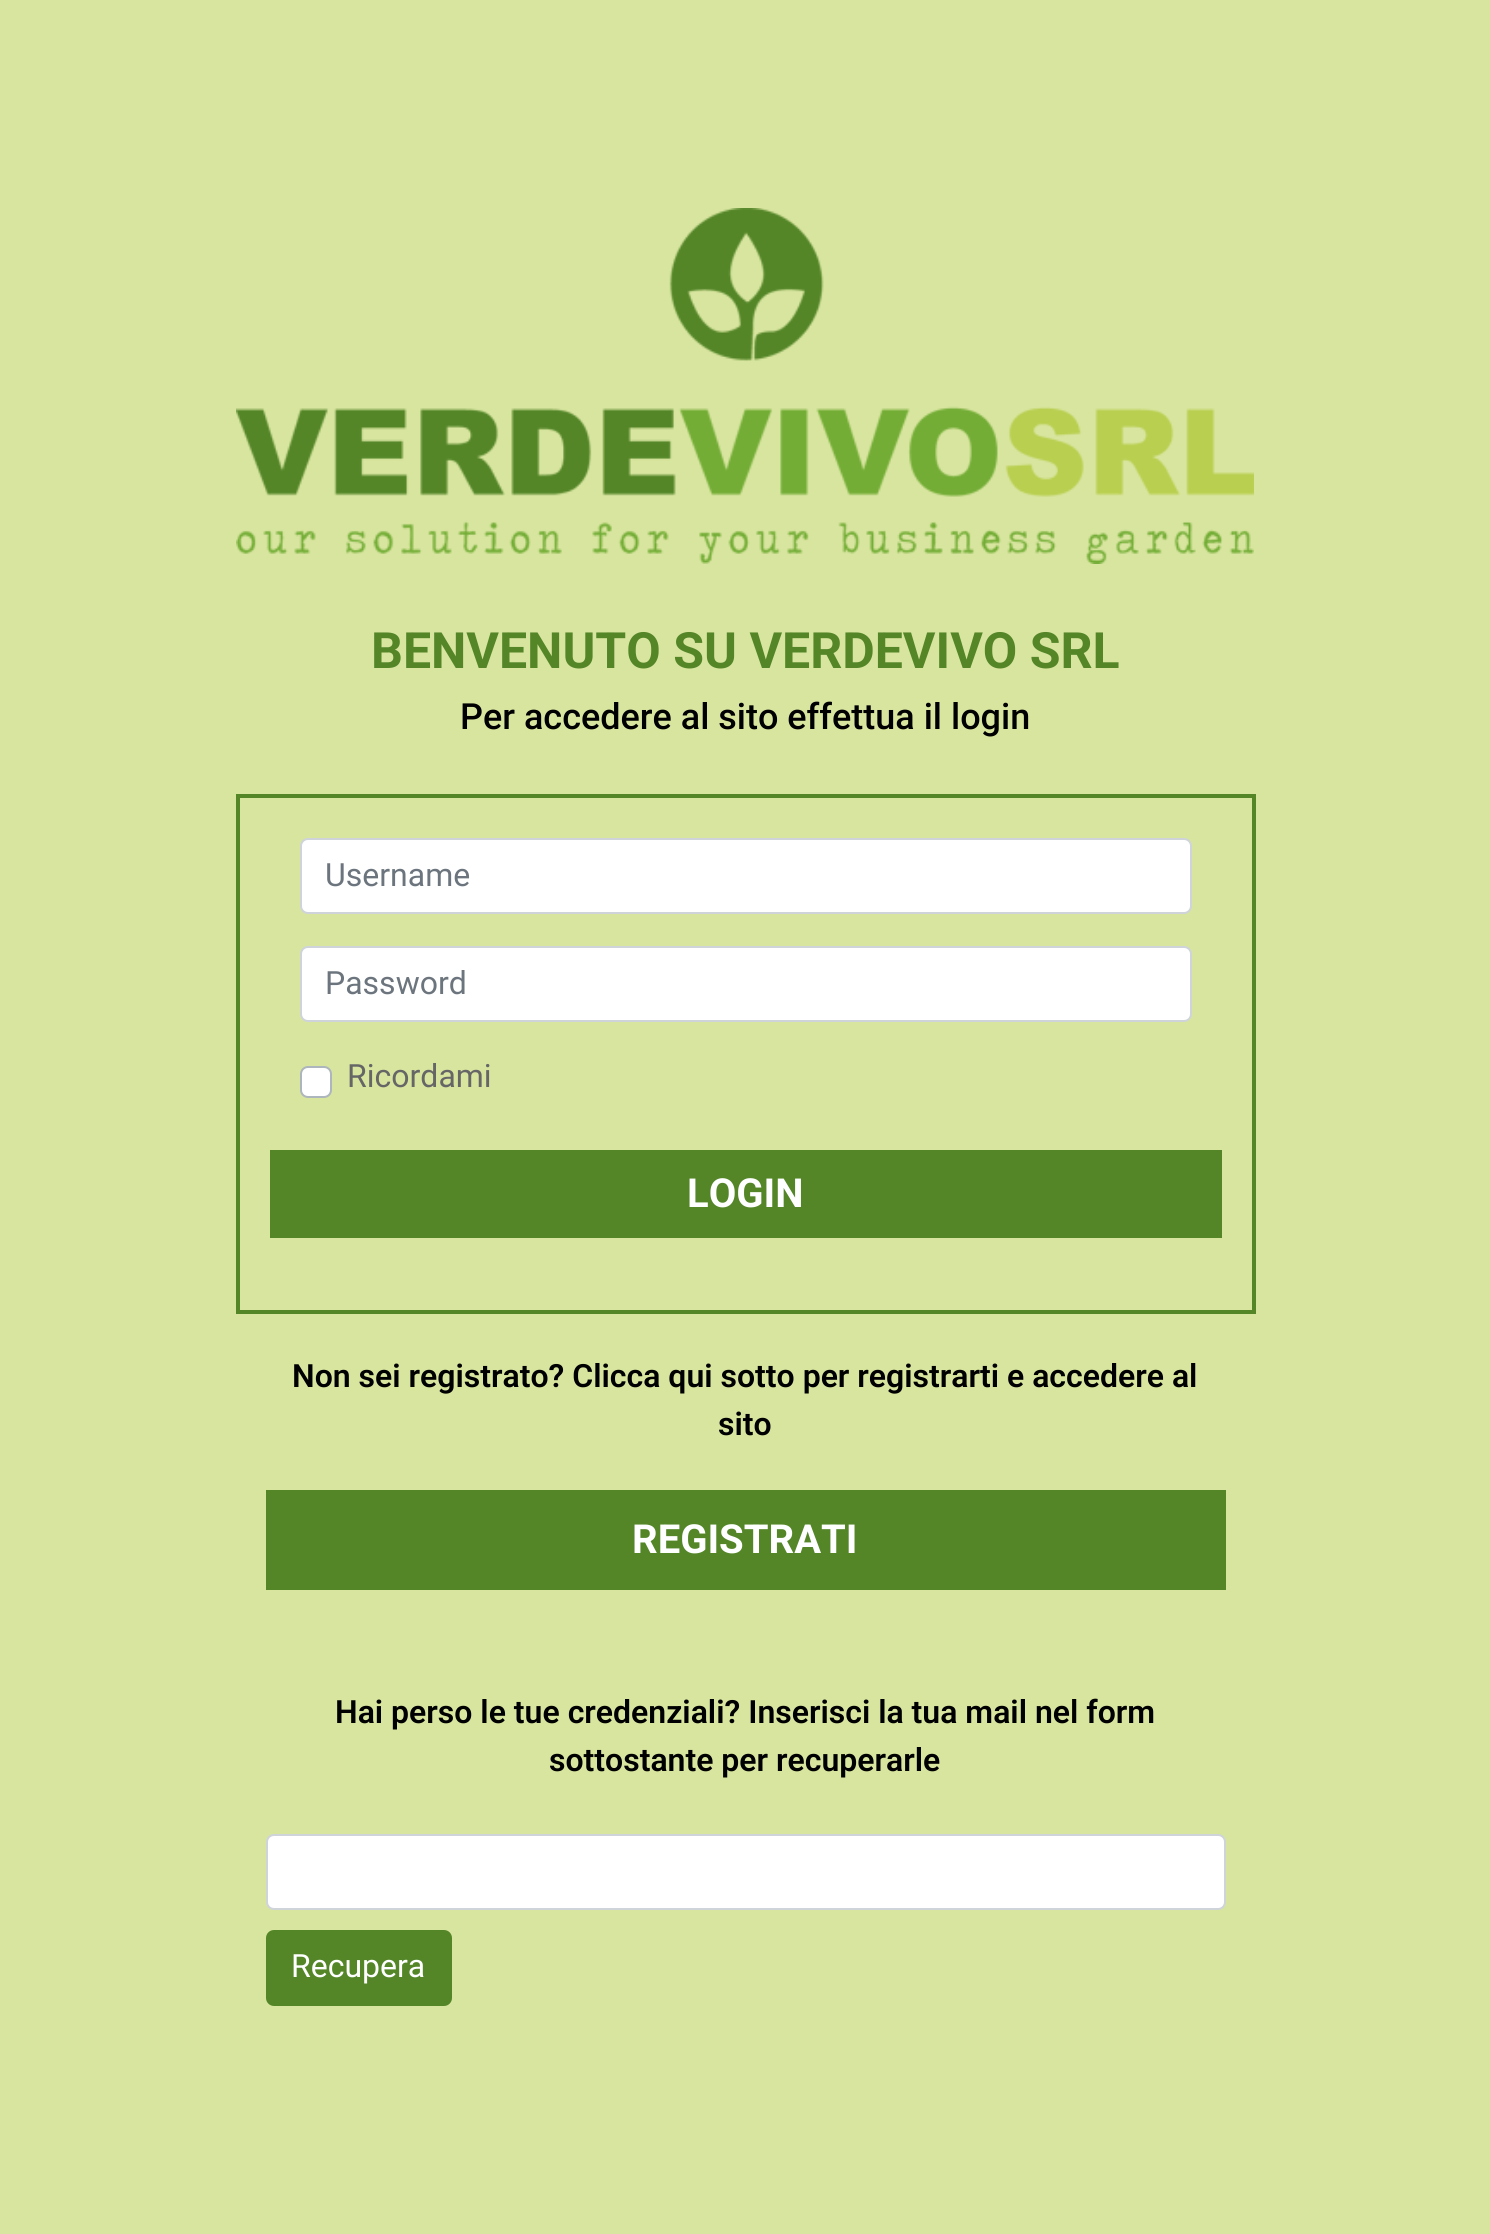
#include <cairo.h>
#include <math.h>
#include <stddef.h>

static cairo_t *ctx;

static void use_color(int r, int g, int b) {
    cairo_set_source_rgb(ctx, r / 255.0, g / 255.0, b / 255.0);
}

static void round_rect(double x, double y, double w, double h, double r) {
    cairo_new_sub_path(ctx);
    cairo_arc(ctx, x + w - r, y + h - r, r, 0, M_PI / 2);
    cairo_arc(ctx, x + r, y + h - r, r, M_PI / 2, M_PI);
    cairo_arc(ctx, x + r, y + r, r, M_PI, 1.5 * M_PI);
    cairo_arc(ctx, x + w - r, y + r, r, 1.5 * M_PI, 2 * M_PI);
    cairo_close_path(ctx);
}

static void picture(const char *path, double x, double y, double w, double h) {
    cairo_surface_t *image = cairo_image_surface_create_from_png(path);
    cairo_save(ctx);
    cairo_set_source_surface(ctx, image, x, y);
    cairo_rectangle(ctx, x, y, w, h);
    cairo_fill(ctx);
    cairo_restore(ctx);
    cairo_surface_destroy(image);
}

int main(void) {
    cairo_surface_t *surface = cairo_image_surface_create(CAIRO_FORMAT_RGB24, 1490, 2234);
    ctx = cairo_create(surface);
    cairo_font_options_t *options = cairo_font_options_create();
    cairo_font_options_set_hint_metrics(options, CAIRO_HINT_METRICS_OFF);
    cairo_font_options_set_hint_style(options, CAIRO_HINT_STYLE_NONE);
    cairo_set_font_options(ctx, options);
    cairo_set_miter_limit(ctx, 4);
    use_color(216, 229, 159);
    cairo_paint(ctx);
    picture("img1.png", 236, 208, 1018, 356);
    cairo_select_font_face(ctx, "Roboto", CAIRO_FONT_SLANT_NORMAL, CAIRO_FONT_WEIGHT_BOLD);
    cairo_set_font_size(ctx, 50);
    use_color(84, 134, 40);
    cairo_move_to(ctx, 371, 668);
    cairo_show_text(ctx, "BENVENUTO SU VERDEVIVO SRL");
    cairo_select_font_face(ctx, "Roboto Medium", CAIRO_FONT_SLANT_NORMAL, CAIRO_FONT_WEIGHT_NORMAL);
    cairo_set_font_size(ctx, 36);
    use_color(0, 0, 0);
    cairo_move_to(ctx, 460, 729);
    cairo_show_text(ctx, "Per accedere al sito effettua il login");
    cairo_rectangle(ctx, 238, 796, 1016, 516);
    use_color(84, 134, 40);
    cairo_set_line_width(ctx, 4);
    cairo_stroke(ctx);
    use_color(255, 255, 255);
    round_rect(301, 839, 890, 74, 7);
    cairo_fill_preserve(ctx);
    use_color(206, 212, 218);
    cairo_set_line_width(ctx, 2);
    cairo_stroke(ctx);
    cairo_select_font_face(ctx, "Roboto", CAIRO_FONT_SLANT_NORMAL, CAIRO_FONT_WEIGHT_NORMAL);
    cairo_set_font_size(ctx, 32);
    use_color(108, 117, 125);
    cairo_move_to(ctx, 325, 886);
    cairo_show_text(ctx, "Username");
    use_color(255, 255, 255);
    round_rect(301, 947, 890, 74, 7);
    cairo_fill_preserve(ctx);
    use_color(206, 212, 218);
    cairo_stroke(ctx);
    use_color(108, 117, 125);
    cairo_move_to(ctx, 325, 994);
    cairo_show_text(ctx, "Password");
    use_color(255, 255, 255);
    round_rect(301, 1067, 30, 30, 7);
    cairo_fill_preserve(ctx);
    use_color(173, 181, 189);
    cairo_stroke(ctx);
    use_color(102, 102, 102);
    cairo_move_to(ctx, 347, 1087);
    cairo_show_text(ctx, "Ricordami");
    use_color(84, 134, 40);
    cairo_rectangle(ctx, 270, 1150, 952, 88);
    cairo_fill(ctx);
    cairo_select_font_face(ctx, "Roboto", CAIRO_FONT_SLANT_NORMAL, CAIRO_FONT_WEIGHT_BOLD);
    cairo_set_font_size(ctx, 40);
    use_color(255, 255, 255);
    cairo_move_to(ctx, 687, 1207);
    cairo_show_text(ctx, "LOGIN");
    cairo_select_font_face(ctx, "Roboto SemiBold", CAIRO_FONT_SLANT_NORMAL, CAIRO_FONT_WEIGHT_NORMAL);
    cairo_set_font_size(ctx, 32);
    use_color(0, 0, 0);
    cairo_move_to(ctx, 292, 1387);
    cairo_show_text(ctx, "Non sei registrato? Clicca qui sotto per registrarti e accedere al");
    cairo_move_to(ctx, 718, 1435);
    cairo_show_text(ctx, "sito");
    use_color(84, 134, 40);
    cairo_rectangle(ctx, 266, 1490, 960, 100);
    cairo_fill(ctx);
    cairo_select_font_face(ctx, "Roboto", CAIRO_FONT_SLANT_NORMAL, CAIRO_FONT_WEIGHT_BOLD);
    cairo_set_font_size(ctx, 40);
    use_color(255, 255, 255);
    cairo_move_to(ctx, 632, 1553);
    cairo_show_text(ctx, "REGISTRATI");
    cairo_select_font_face(ctx, "Roboto SemiBold", CAIRO_FONT_SLANT_NORMAL, CAIRO_FONT_WEIGHT_NORMAL);
    cairo_set_font_size(ctx, 32);
    use_color(0, 0, 0);
    cairo_move_to(ctx, 335, 1723);
    cairo_show_text(ctx, "Hai perso le tue credenziali? Inserisci la tua mail nel form");
    cairo_move_to(ctx, 549, 1771);
    cairo_show_text(ctx, "sottostante per recuperarle");
    use_color(255, 255, 255);
    round_rect(267, 1835, 958, 74, 7);
    cairo_fill_preserve(ctx);
    use_color(206, 212, 218);
    cairo_stroke(ctx);
    use_color(84, 134, 40);
    round_rect(266, 1930, 186, 76, 8);
    cairo_fill(ctx);
    cairo_select_font_face(ctx, "Roboto", CAIRO_FONT_SLANT_NORMAL, CAIRO_FONT_WEIGHT_NORMAL);
    use_color(255, 255, 255);
    cairo_move_to(ctx, 291, 1977);
    cairo_show_text(ctx, "Recupera");
    cairo_surface_write_to_png(surface, "result.png");
    cairo_font_options_destroy(options);
    cairo_destroy(ctx);
    cairo_surface_destroy(surface);
    return 0;
}
